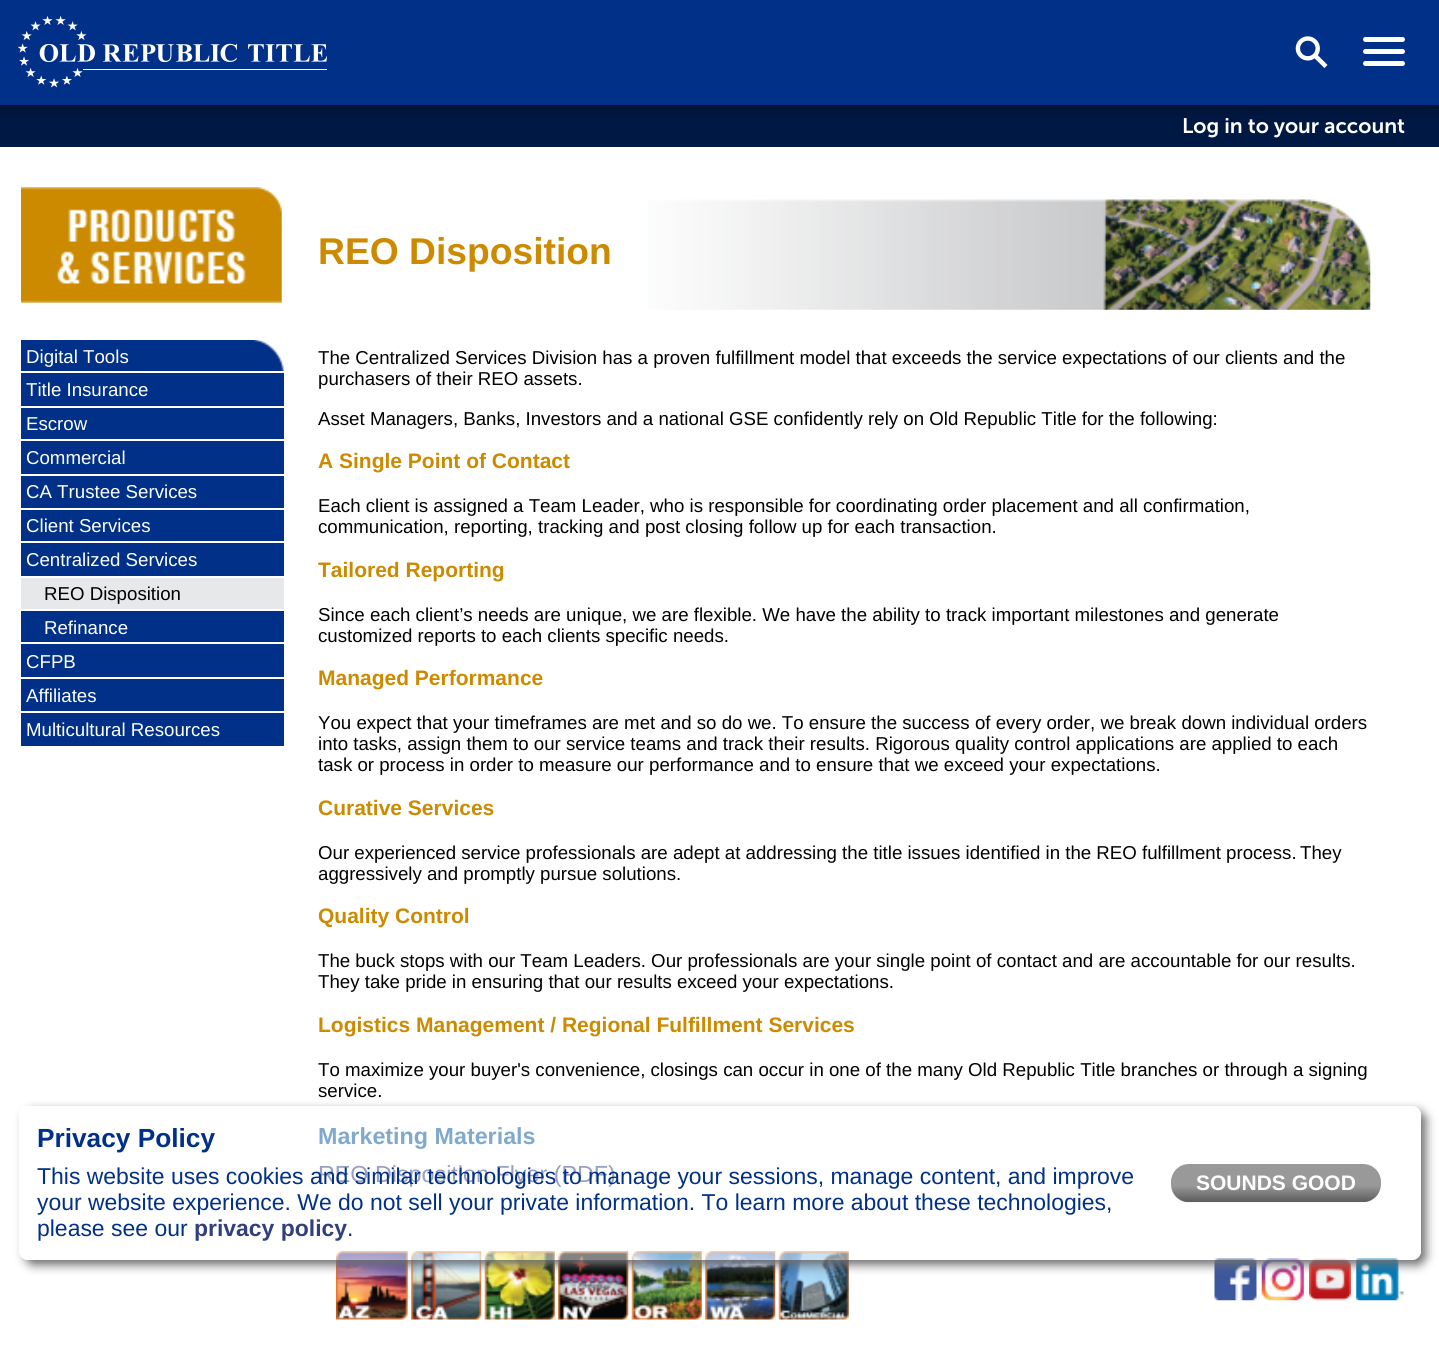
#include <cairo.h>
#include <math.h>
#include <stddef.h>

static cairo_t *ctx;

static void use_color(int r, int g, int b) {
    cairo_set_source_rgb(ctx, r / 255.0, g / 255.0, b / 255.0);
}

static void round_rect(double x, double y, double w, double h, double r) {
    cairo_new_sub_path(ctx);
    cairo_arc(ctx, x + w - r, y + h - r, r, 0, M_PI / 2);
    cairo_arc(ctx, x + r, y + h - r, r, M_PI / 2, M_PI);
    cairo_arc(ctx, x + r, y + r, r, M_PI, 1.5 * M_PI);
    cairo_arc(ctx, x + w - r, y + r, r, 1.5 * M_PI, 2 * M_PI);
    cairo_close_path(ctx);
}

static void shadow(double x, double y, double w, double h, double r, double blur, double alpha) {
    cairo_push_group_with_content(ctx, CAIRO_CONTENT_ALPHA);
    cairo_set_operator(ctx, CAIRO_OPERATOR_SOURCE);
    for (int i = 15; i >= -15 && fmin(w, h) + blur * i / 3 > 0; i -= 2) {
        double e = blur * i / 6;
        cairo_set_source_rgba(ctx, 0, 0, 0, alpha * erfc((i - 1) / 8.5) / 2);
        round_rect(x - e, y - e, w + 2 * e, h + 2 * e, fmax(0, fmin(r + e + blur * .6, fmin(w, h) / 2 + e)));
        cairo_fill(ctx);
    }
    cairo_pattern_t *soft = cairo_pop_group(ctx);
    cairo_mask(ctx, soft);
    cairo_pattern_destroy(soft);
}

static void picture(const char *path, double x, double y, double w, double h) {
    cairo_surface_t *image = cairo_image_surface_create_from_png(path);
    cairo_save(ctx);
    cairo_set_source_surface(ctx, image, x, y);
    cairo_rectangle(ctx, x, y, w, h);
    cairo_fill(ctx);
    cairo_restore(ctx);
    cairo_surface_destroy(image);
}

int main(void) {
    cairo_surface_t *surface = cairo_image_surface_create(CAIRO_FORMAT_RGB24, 1439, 1346);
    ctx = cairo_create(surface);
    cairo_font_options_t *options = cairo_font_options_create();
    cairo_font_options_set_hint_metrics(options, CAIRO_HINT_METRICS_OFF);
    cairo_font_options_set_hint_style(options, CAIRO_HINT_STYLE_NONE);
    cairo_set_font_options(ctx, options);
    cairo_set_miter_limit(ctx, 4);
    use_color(255, 255, 255);
    cairo_paint(ctx);
    use_color(0, 24, 68);
    cairo_rectangle(ctx, 0, 105, 1439, 42);
    cairo_fill(ctx);
    use_color(0, 0, 0);
    shadow(0, 0, 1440, 105, 0, 9, 0.5);
    use_color(0, 48, 135);
    cairo_rectangle(ctx, 0, 0, 1439, 105);
    cairo_fill(ctx);
    picture("img1.png", 18, 16, 309, 72);
    picture("img2.png", 1295, 36, 33, 32);
    use_color(255, 255, 255);
    round_rect(1363, 49, 42, 5, 2.5);
    cairo_fill(ctx);
    round_rect(1363, 37, 42, 5, 2.5);
    cairo_fill(ctx);
    round_rect(1363, 61, 42, 5, 2.5);
    cairo_fill(ctx);
    cairo_select_font_face(ctx, "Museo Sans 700 SemiBold", CAIRO_FONT_SLANT_NORMAL, CAIRO_FONT_WEIGHT_NORMAL);
    cairo_set_font_size(ctx, 21);
    cairo_move_to(ctx, 1182, 133);
    cairo_show_text(ctx, "Log in to your account");
    picture("img3.png", 21, 187, 261, 116);
    picture("img4.png", 21, 340, 263, 31);
    cairo_select_font_face(ctx, "Liberation Sans", CAIRO_FONT_SLANT_NORMAL, CAIRO_FONT_WEIGHT_NORMAL);
    cairo_set_font_size(ctx, 18.67);
    cairo_move_to(ctx, 26, 363);
    cairo_show_text(ctx, "Digital Tools");
    use_color(0, 48, 135);
    cairo_rectangle(ctx, 21, 373, 263, 33);
    cairo_fill(ctx);
    use_color(255, 255, 255);
    cairo_move_to(ctx, 26, 396);
    cairo_show_text(ctx, "Title Insurance");
    use_color(0, 48, 135);
    cairo_rectangle(ctx, 21, 408, 263, 31);
    cairo_fill(ctx);
    use_color(255, 255, 255);
    cairo_move_to(ctx, 26, 430);
    cairo_show_text(ctx, "Escrow");
    use_color(0, 48, 135);
    cairo_rectangle(ctx, 21, 441, 263, 33);
    cairo_fill(ctx);
    use_color(255, 255, 255);
    cairo_move_to(ctx, 26, 464);
    cairo_show_text(ctx, "Commercial");
    use_color(0, 48, 135);
    cairo_rectangle(ctx, 21, 476, 263, 32);
    cairo_fill(ctx);
    use_color(255, 255, 255);
    cairo_move_to(ctx, 26, 498);
    cairo_show_text(ctx, "CA Trustee Services");
    use_color(0, 48, 135);
    cairo_rectangle(ctx, 21, 510, 263, 31);
    cairo_fill(ctx);
    use_color(255, 255, 255);
    cairo_move_to(ctx, 26, 532);
    cairo_show_text(ctx, "Client Services");
    use_color(0, 48, 135);
    cairo_rectangle(ctx, 21, 543, 263, 99);
    cairo_fill(ctx);
    use_color(255, 255, 255);
    cairo_move_to(ctx, 26, 566);
    cairo_show_text(ctx, "Centralized Services");
    use_color(231, 232, 234);
    cairo_rectangle(ctx, 21, 578, 263, 31);
    cairo_fill(ctx);
    use_color(255, 255, 255);
    cairo_rectangle(ctx, 21, 576, 263, 2);
    cairo_fill(ctx);
    use_color(0, 0, 0);
    cairo_move_to(ctx, 44, 600);
    cairo_show_text(ctx, "REO Disposition");
    use_color(255, 255, 255);
    cairo_rectangle(ctx, 21, 609, 263, 2);
    cairo_fill(ctx);
    cairo_move_to(ctx, 44, 634);
    cairo_show_text(ctx, "Refinance");
    use_color(0, 48, 135);
    cairo_rectangle(ctx, 21, 644, 263, 33);
    cairo_fill(ctx);
    use_color(255, 255, 255);
    cairo_move_to(ctx, 26, 668);
    cairo_show_text(ctx, "CFPB");
    use_color(0, 48, 135);
    cairo_rectangle(ctx, 21, 679, 263, 32);
    cairo_fill(ctx);
    use_color(255, 255, 255);
    cairo_move_to(ctx, 26, 702);
    cairo_show_text(ctx, "Affiliates");
    use_color(0, 48, 135);
    cairo_rectangle(ctx, 21, 713, 263, 33);
    cairo_fill(ctx);
    use_color(255, 255, 255);
    cairo_move_to(ctx, 26, 736);
    cairo_show_text(ctx, "Multicultural Resources");
    picture("img5.png", 648, 199, 723, 111);
    cairo_select_font_face(ctx, "Liberation Sans", CAIRO_FONT_SLANT_NORMAL, CAIRO_FONT_WEIGHT_BOLD);
    cairo_set_font_size(ctx, 37.25);
    use_color(204, 138, 0);
    cairo_move_to(ctx, 318, 264);
    cairo_show_text(ctx, "REO Disposition");
    cairo_select_font_face(ctx, "Liberation Sans", CAIRO_FONT_SLANT_NORMAL, CAIRO_FONT_WEIGHT_NORMAL);
    cairo_set_font_size(ctx, 18.67);
    use_color(0, 0, 0);
    cairo_move_to(ctx, 318, 364);
    cairo_show_text(ctx, "The Centralized Services Division has a proven fulfillment model that exceeds the service expectations of our clients and the");
    cairo_move_to(ctx, 318, 385);
    cairo_show_text(ctx, "purchasers of their REO assets.");
    cairo_move_to(ctx, 318, 425);
    cairo_show_text(ctx, "Asset Managers, Banks, Investors and a national GSE confidently rely on Old Republic Title for the following:");
    cairo_select_font_face(ctx, "Liberation Sans", CAIRO_FONT_SLANT_NORMAL, CAIRO_FONT_WEIGHT_BOLD);
    cairo_set_font_size(ctx, 21);
    use_color(204, 138, 0);
    cairo_move_to(ctx, 318, 468);
    cairo_show_text(ctx, "A Single Point of Contact");
    cairo_select_font_face(ctx, "Liberation Sans", CAIRO_FONT_SLANT_NORMAL, CAIRO_FONT_WEIGHT_NORMAL);
    cairo_set_font_size(ctx, 18.67);
    use_color(0, 0, 0);
    cairo_move_to(ctx, 318, 512);
    cairo_show_text(ctx, "Each client is assigned a Team Leader, who is responsible for coordinating order placement and all confirmation,");
    cairo_move_to(ctx, 318, 533);
    cairo_show_text(ctx, "communication, reporting, tracking and post closing follow up for each transaction.");
    cairo_select_font_face(ctx, "Liberation Sans", CAIRO_FONT_SLANT_NORMAL, CAIRO_FONT_WEIGHT_BOLD);
    cairo_set_font_size(ctx, 21);
    use_color(204, 138, 0);
    cairo_move_to(ctx, 318, 577);
    cairo_show_text(ctx, "Tailored Reporting");
    cairo_select_font_face(ctx, "Liberation Sans", CAIRO_FONT_SLANT_NORMAL, CAIRO_FONT_WEIGHT_NORMAL);
    cairo_set_font_size(ctx, 18.67);
    use_color(0, 0, 0);
    cairo_move_to(ctx, 318, 621);
    cairo_show_text(ctx, "Since each client’s needs are unique, we are flexible. We have the ability to track important milestones and generate");
    cairo_move_to(ctx, 318, 642);
    cairo_show_text(ctx, "customized reports to each clients specific needs.");
    cairo_select_font_face(ctx, "Liberation Sans", CAIRO_FONT_SLANT_NORMAL, CAIRO_FONT_WEIGHT_BOLD);
    cairo_set_font_size(ctx, 21);
    use_color(204, 138, 0);
    cairo_move_to(ctx, 318, 685);
    cairo_show_text(ctx, "Managed Performance");
    cairo_select_font_face(ctx, "Liberation Sans", CAIRO_FONT_SLANT_NORMAL, CAIRO_FONT_WEIGHT_NORMAL);
    cairo_set_font_size(ctx, 18.67);
    use_color(0, 0, 0);
    cairo_move_to(ctx, 318, 729);
    cairo_show_text(ctx, "You expect that your timeframes are met and so do we. To ensure the success of every order, we break down individual orders");
    cairo_move_to(ctx, 318, 750);
    cairo_show_text(ctx, "into tasks, assign them to our service teams and track their results. Rigorous quality control applications are applied to each");
    cairo_move_to(ctx, 318, 771);
    cairo_show_text(ctx, "task or process in order to measure our performance and to ensure that we exceed your expectations.");
    cairo_select_font_face(ctx, "Liberation Sans", CAIRO_FONT_SLANT_NORMAL, CAIRO_FONT_WEIGHT_BOLD);
    cairo_set_font_size(ctx, 21);
    use_color(204, 138, 0);
    cairo_move_to(ctx, 318, 815);
    cairo_show_text(ctx, "Curative Services");
    cairo_select_font_face(ctx, "Liberation Sans", CAIRO_FONT_SLANT_NORMAL, CAIRO_FONT_WEIGHT_NORMAL);
    cairo_set_font_size(ctx, 18.67);
    use_color(0, 0, 0);
    cairo_move_to(ctx, 318, 859);
    cairo_show_text(ctx, "Our experienced service professionals are adept at addressing the title issues identified in the REO fulfillment process.");
    cairo_move_to(ctx, 1300, 859);
    cairo_show_text(ctx, "They");
    cairo_move_to(ctx, 318, 880);
    cairo_show_text(ctx, "aggressively and promptly pursue solutions.");
    cairo_select_font_face(ctx, "Liberation Sans", CAIRO_FONT_SLANT_NORMAL, CAIRO_FONT_WEIGHT_BOLD);
    cairo_set_font_size(ctx, 21);
    use_color(204, 138, 0);
    cairo_move_to(ctx, 318, 923);
    cairo_show_text(ctx, "Quality Control");
    cairo_select_font_face(ctx, "Liberation Sans", CAIRO_FONT_SLANT_NORMAL, CAIRO_FONT_WEIGHT_NORMAL);
    cairo_set_font_size(ctx, 18.67);
    use_color(0, 0, 0);
    cairo_move_to(ctx, 318, 967);
    cairo_show_text(ctx, "The buck stops with our Team Leaders. Our professionals are your single point of contact and are accountable for our results.");
    cairo_move_to(ctx, 318, 988);
    cairo_show_text(ctx, "They take pride in ensuring that our results exceed your expectations.");
    cairo_select_font_face(ctx, "Liberation Sans", CAIRO_FONT_SLANT_NORMAL, CAIRO_FONT_WEIGHT_BOLD);
    cairo_set_font_size(ctx, 21);
    use_color(204, 138, 0);
    cairo_move_to(ctx, 318, 1032);
    cairo_show_text(ctx, "Logistics Management / Regional Fulfillment Services");
    cairo_select_font_face(ctx, "Liberation Sans", CAIRO_FONT_SLANT_NORMAL, CAIRO_FONT_WEIGHT_NORMAL);
    cairo_set_font_size(ctx, 18.67);
    use_color(0, 0, 0);
    cairo_move_to(ctx, 318, 1076);
    cairo_show_text(ctx, "To maximize your buyer's convenience, closings can occur in one of the many Old Republic Title branches or through a signing");
    cairo_move_to(ctx, 318, 1097);
    cairo_show_text(ctx, "service.");
    cairo_select_font_face(ctx, "Liberation Sans", CAIRO_FONT_SLANT_NORMAL, CAIRO_FONT_WEIGHT_BOLD);
    cairo_set_font_size(ctx, 23.3);
    use_color(0, 83, 155);
    cairo_move_to(ctx, 318, 1144);
    cairo_show_text(ctx, "Marketing Materials");
    cairo_select_font_face(ctx, "Liberation Sans", CAIRO_FONT_SLANT_NORMAL, CAIRO_FONT_WEIGHT_NORMAL);
    use_color(49, 63, 126);
    cairo_move_to(ctx, 318, 1182);
    cairo_show_text(ctx, "REO Disposition Flyer (PDF)");
    picture("img6.png", 336, 1251, 72, 69);
    picture("img7.png", 411, 1251, 71, 69);
    picture("img8.png", 484, 1251, 71, 69);
    picture("img9.png", 558, 1251, 71, 69);
    picture("img10.png", 631, 1251, 71, 69);
    picture("img11.png", 705, 1251, 71, 69);
    picture("img12.png", 778, 1251, 71, 69);
    picture("img13.png", 1214, 1258, 43, 43);
    picture("img14.png", 1261, 1258, 43, 43);
    picture("img15.png", 1309, 1258, 42, 43);
    picture("img16.png", 1356, 1258, 48, 43);
    cairo_save(ctx);
    cairo_set_fill_rule(ctx, CAIRO_FILL_RULE_EVEN_ODD);
    cairo_new_path(ctx);
    cairo_move_to(ctx, 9, 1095);
    cairo_line_to(ctx, 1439, 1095);
    cairo_line_to(ctx, 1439, 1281);
    cairo_line_to(ctx, 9, 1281);
    cairo_close_path(ctx);
    cairo_move_to(ctx, 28, 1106);
    cairo_line_to(ctx, 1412, 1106);
    cairo_curve_to(ctx, 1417, 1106, 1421, 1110, 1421, 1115);
    cairo_line_to(ctx, 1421, 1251);
    cairo_curve_to(ctx, 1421, 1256, 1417, 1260, 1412, 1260);
    cairo_line_to(ctx, 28, 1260);
    cairo_curve_to(ctx, 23, 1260, 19, 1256, 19, 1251);
    cairo_line_to(ctx, 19, 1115);
    cairo_curve_to(ctx, 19, 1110, 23, 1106, 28, 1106);
    cairo_close_path(ctx);
    cairo_clip(ctx);
    use_color(110, 111, 113);
    shadow(25, 1111, 1401, 154, 9, 5, 1);
    cairo_restore(ctx);
    cairo_set_source_rgba(ctx, 1, 1, 1, 0.5);
    round_rect(19, 1106, 1402, 154, 9);
    cairo_fill(ctx);
    cairo_select_font_face(ctx, "Liberation Sans", CAIRO_FONT_SLANT_NORMAL, CAIRO_FONT_WEIGHT_BOLD);
    cairo_set_font_size(ctx, 26.25);
    use_color(0, 48, 135);
    cairo_move_to(ctx, 37, 1147);
    cairo_show_text(ctx, "Privacy Policy");
    cairo_select_font_face(ctx, "Liberation Sans", CAIRO_FONT_SLANT_NORMAL, CAIRO_FONT_WEIGHT_NORMAL);
    cairo_set_font_size(ctx, 22.95);
    cairo_move_to(ctx, 37, 1184);
    cairo_show_text(ctx, "This website uses cookies and similar technologies to manage your sessions, manage content, and improve");
    cairo_move_to(ctx, 37, 1210);
    cairo_show_text(ctx, "your website experience. We do not sell your private information. To learn more about these technologies,");
    cairo_move_to(ctx, 37, 1236);
    cairo_show_text(ctx, "please see our");
    cairo_select_font_face(ctx, "Liberation Sans", CAIRO_FONT_SLANT_NORMAL, CAIRO_FONT_WEIGHT_BOLD);
    use_color(49, 63, 126);
    cairo_move_to(ctx, 194, 1236);
    cairo_show_text(ctx, "privacy policy");
    cairo_select_font_face(ctx, "Liberation Sans", CAIRO_FONT_SLANT_NORMAL, CAIRO_FONT_WEIGHT_NORMAL);
    use_color(0, 48, 135);
    cairo_move_to(ctx, 347, 1236);
    cairo_show_text(ctx, ".");
    use_color(153, 153, 153);
    round_rect(1171, 1164, 210, 38, 18);
    cairo_fill(ctx);
    picture("img17.png", 1171, 1186, 209, 17);
    cairo_select_font_face(ctx, "Liberation Sans", CAIRO_FONT_SLANT_NORMAL, CAIRO_FONT_WEIGHT_BOLD);
    cairo_set_font_size(ctx, 21);
    use_color(255, 255, 255);
    cairo_move_to(ctx, 1196, 1190);
    cairo_show_text(ctx, "SOUNDS GOOD");
    cairo_surface_write_to_png(surface, "result.png");
    cairo_font_options_destroy(options);
    cairo_destroy(ctx);
    cairo_surface_destroy(surface);
    return 0;
}
